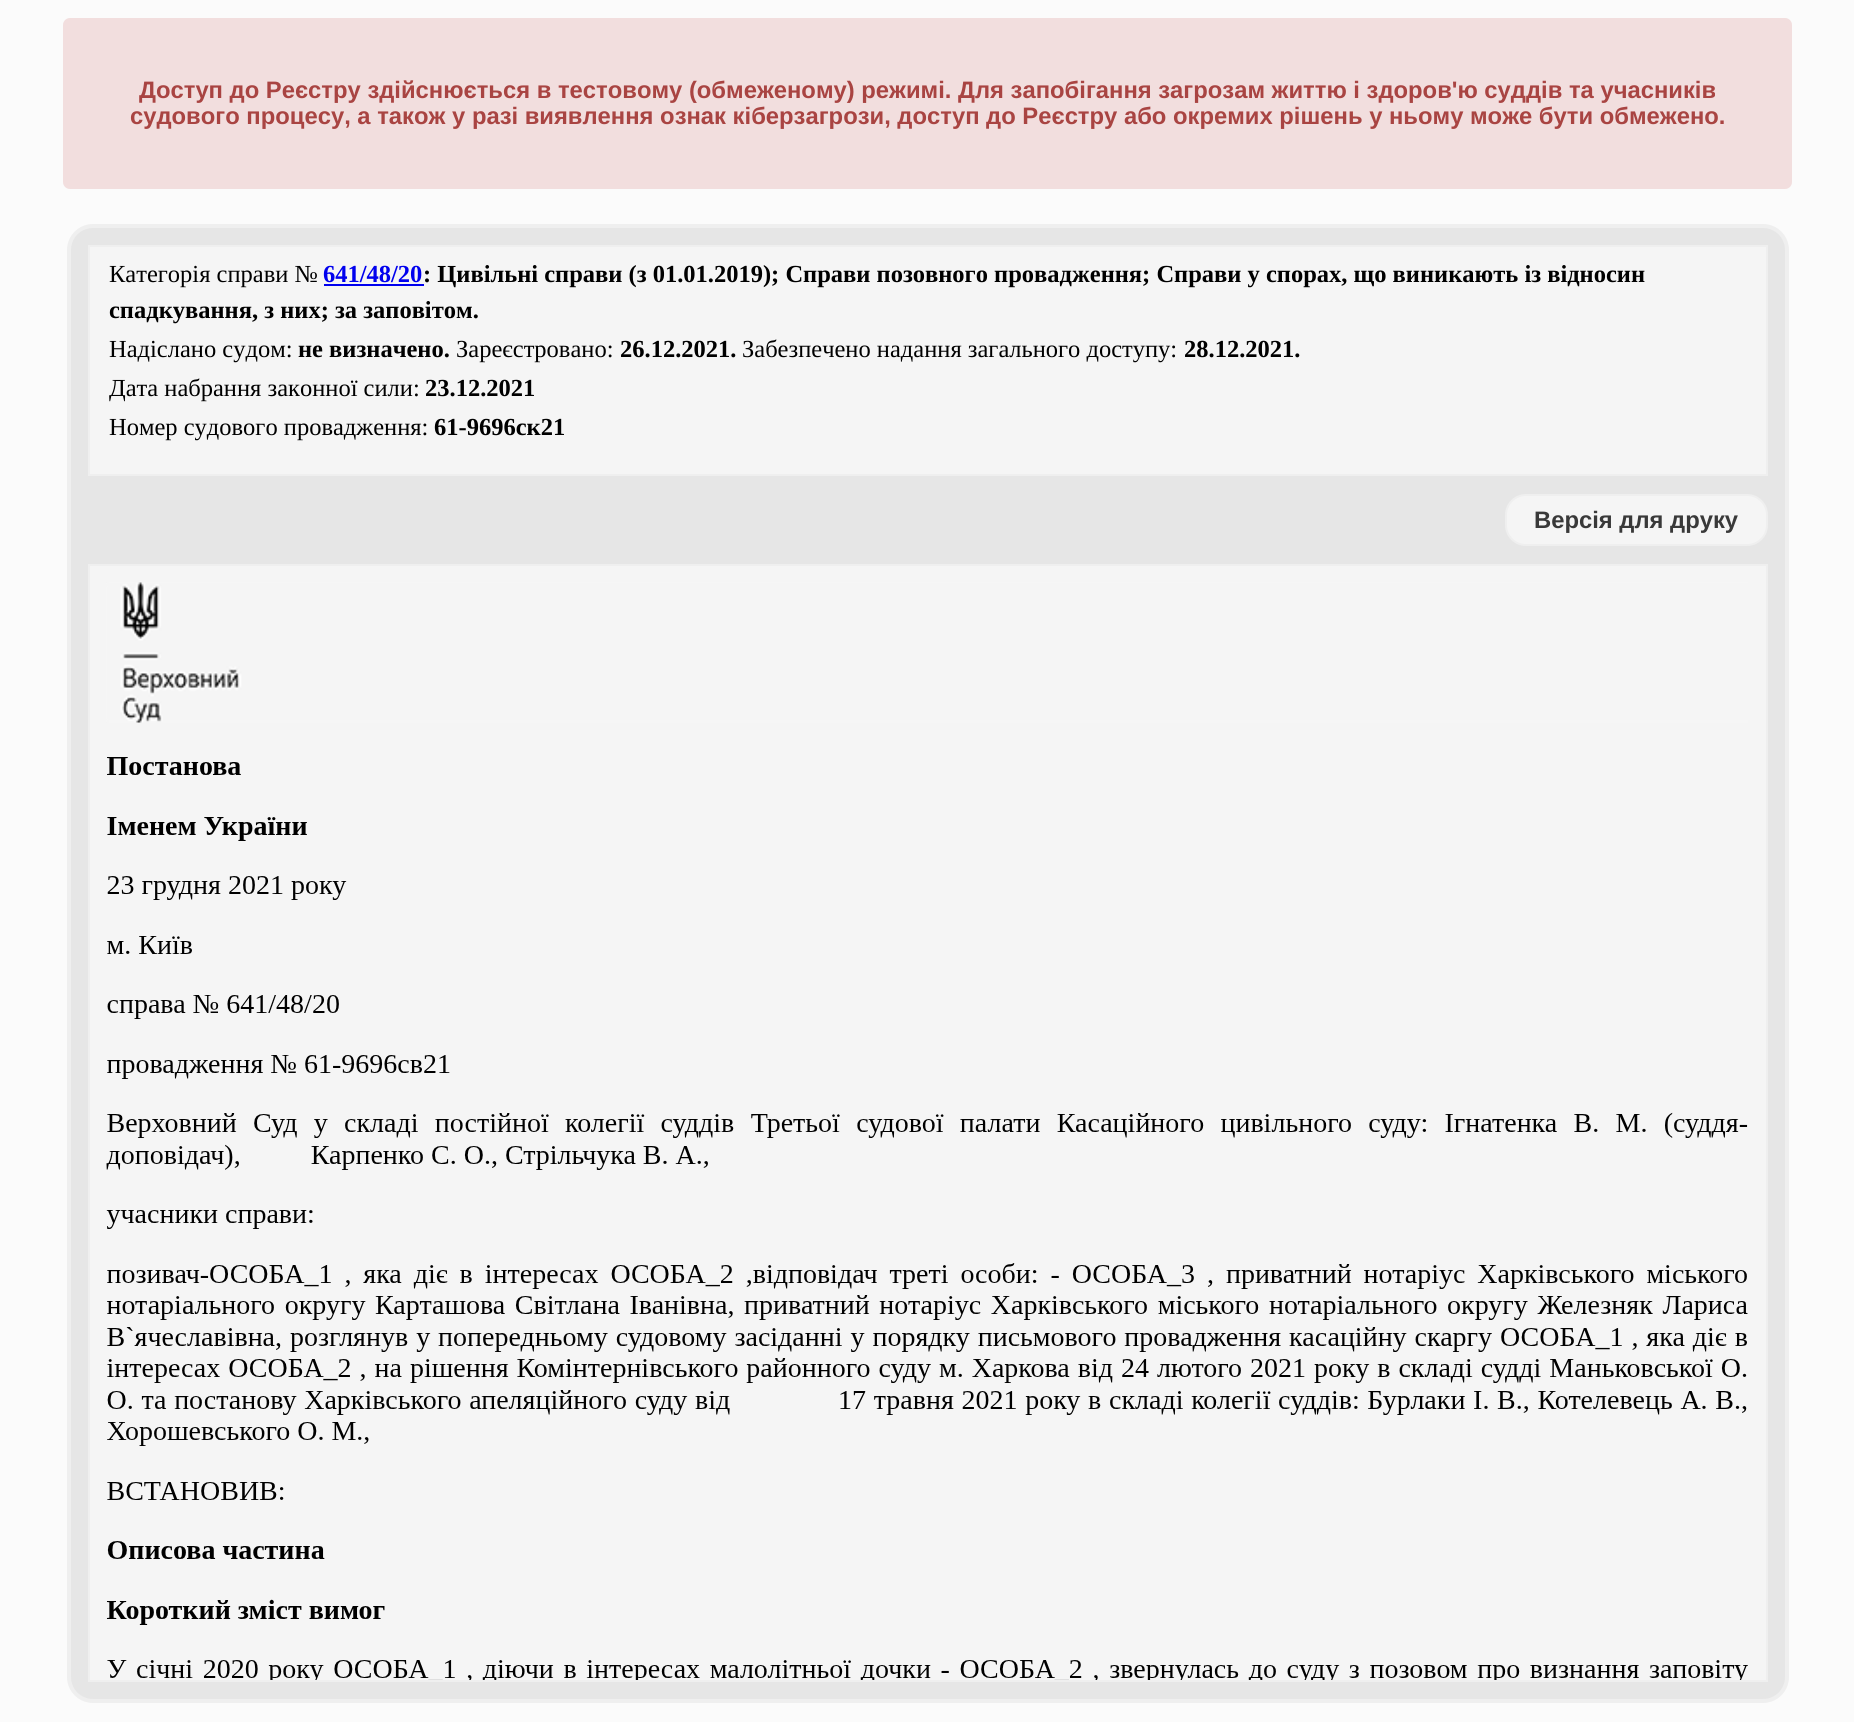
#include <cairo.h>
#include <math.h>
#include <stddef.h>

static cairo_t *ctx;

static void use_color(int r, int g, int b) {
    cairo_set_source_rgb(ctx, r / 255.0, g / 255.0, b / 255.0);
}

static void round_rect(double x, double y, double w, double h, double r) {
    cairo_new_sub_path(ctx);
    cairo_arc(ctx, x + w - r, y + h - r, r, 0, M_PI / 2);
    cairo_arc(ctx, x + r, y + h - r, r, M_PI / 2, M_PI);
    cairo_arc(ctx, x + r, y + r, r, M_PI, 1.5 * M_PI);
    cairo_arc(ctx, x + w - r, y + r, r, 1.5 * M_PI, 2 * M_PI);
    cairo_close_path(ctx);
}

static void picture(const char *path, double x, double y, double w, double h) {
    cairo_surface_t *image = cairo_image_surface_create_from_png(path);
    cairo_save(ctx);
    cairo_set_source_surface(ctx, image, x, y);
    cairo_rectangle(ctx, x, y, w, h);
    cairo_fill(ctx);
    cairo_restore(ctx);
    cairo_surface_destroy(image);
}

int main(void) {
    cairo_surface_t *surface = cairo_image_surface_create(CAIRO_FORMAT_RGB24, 1854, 1722);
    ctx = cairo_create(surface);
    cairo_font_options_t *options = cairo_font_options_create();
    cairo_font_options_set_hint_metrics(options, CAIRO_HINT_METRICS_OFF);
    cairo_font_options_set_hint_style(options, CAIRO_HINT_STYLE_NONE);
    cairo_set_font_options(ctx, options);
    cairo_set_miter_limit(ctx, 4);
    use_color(251, 251, 251);
    cairo_paint(ctx);
    use_color(242, 222, 222);
    round_rect(63, 18, 1729, 171, 7);
    cairo_fill(ctx);
    cairo_select_font_face(ctx, "Liberation Sans", CAIRO_FONT_SLANT_NORMAL, CAIRO_FONT_WEIGHT_BOLD);
    cairo_set_font_size(ctx, 23.8);
    use_color(169, 68, 66);
    cairo_move_to(ctx, 139, 98);
    cairo_show_text(ctx, "Доступ до Реєстру здійснюється в тестовому (обмеженому) режимі. Для запобігання загрозам життю і здоров'ю суддів та учасників");
    cairo_move_to(ctx, 130, 124);
    cairo_show_text(ctx, "судового процесу, а також у разі виявлення ознак кіберзагрози, доступ до Реєстру або окремих рішень у ньому може бути обмежено.");
    use_color(230, 230, 230);
    round_rect(69, 226, 1718, 1475, 24);
    cairo_fill_preserve(ctx);
    use_color(239, 239, 239);
    cairo_set_line_width(ctx, 4);
    cairo_stroke(ctx);
    use_color(245, 245, 245);
    cairo_rectangle(ctx, 89, 246, 1678, 229);
    cairo_fill_preserve(ctx);
    use_color(239, 239, 239);
    cairo_set_line_width(ctx, 2);
    cairo_stroke(ctx);
    cairo_select_font_face(ctx, "Liberation Serif", CAIRO_FONT_SLANT_NORMAL, CAIRO_FONT_WEIGHT_NORMAL);
    cairo_set_font_size(ctx, 24.5);
    use_color(0, 0, 0);
    cairo_move_to(ctx, 109, 282);
    cairo_show_text(ctx, "Категорія справи №");
    cairo_select_font_face(ctx, "Liberation Serif", CAIRO_FONT_SLANT_NORMAL, CAIRO_FONT_WEIGHT_BOLD);
    use_color(0, 0, 238);
    cairo_move_to(ctx, 323, 282);
    cairo_show_text(ctx, "641/48/20");
    use_color(0, 0, 0);
    cairo_move_to(ctx, 423, 282);
    cairo_show_text(ctx, ": Цивільні справи (з 01.01.2019); Справи позовного провадження; Справи у спорах, що виникають із відносин");
    use_color(0, 0, 238);
    cairo_rectangle(ctx, 324, 284, 100, 2);
    cairo_fill(ctx);
    use_color(0, 0, 0);
    cairo_move_to(ctx, 109, 318);
    cairo_show_text(ctx, "спадкування, з них; за заповітом.");
    cairo_select_font_face(ctx, "Liberation Serif", CAIRO_FONT_SLANT_NORMAL, CAIRO_FONT_WEIGHT_NORMAL);
    cairo_move_to(ctx, 109, 357);
    cairo_show_text(ctx, "Надіслано судом:");
    cairo_select_font_face(ctx, "Liberation Serif", CAIRO_FONT_SLANT_NORMAL, CAIRO_FONT_WEIGHT_BOLD);
    cairo_move_to(ctx, 298, 357);
    cairo_show_text(ctx, "не визначено.");
    cairo_select_font_face(ctx, "Liberation Serif", CAIRO_FONT_SLANT_NORMAL, CAIRO_FONT_WEIGHT_NORMAL);
    cairo_move_to(ctx, 456, 357);
    cairo_show_text(ctx, "Зареєстровано:");
    cairo_select_font_face(ctx, "Liberation Serif", CAIRO_FONT_SLANT_NORMAL, CAIRO_FONT_WEIGHT_BOLD);
    cairo_move_to(ctx, 620, 357);
    cairo_show_text(ctx, "26.12.2021.");
    cairo_select_font_face(ctx, "Liberation Serif", CAIRO_FONT_SLANT_NORMAL, CAIRO_FONT_WEIGHT_NORMAL);
    cairo_move_to(ctx, 742, 357);
    cairo_show_text(ctx, "Забезпечено надання загального доступу:");
    cairo_select_font_face(ctx, "Liberation Serif", CAIRO_FONT_SLANT_NORMAL, CAIRO_FONT_WEIGHT_BOLD);
    cairo_move_to(ctx, 1184, 357);
    cairo_show_text(ctx, "28.12.2021.");
    cairo_select_font_face(ctx, "Liberation Serif", CAIRO_FONT_SLANT_NORMAL, CAIRO_FONT_WEIGHT_NORMAL);
    cairo_move_to(ctx, 109, 396);
    cairo_show_text(ctx, "Дата набрання законної сили:");
    cairo_select_font_face(ctx, "Liberation Serif", CAIRO_FONT_SLANT_NORMAL, CAIRO_FONT_WEIGHT_BOLD);
    cairo_move_to(ctx, 425, 396);
    cairo_show_text(ctx, "23.12.2021");
    cairo_select_font_face(ctx, "Liberation Serif", CAIRO_FONT_SLANT_NORMAL, CAIRO_FONT_WEIGHT_NORMAL);
    cairo_move_to(ctx, 109, 435);
    cairo_show_text(ctx, "Номер судового провадження:");
    cairo_select_font_face(ctx, "Liberation Serif", CAIRO_FONT_SLANT_NORMAL, CAIRO_FONT_WEIGHT_BOLD);
    cairo_move_to(ctx, 434, 435);
    cairo_show_text(ctx, "61-9696ск21");
    use_color(245, 245, 245);
    round_rect(1506, 495, 261, 50, 20);
    cairo_fill_preserve(ctx);
    use_color(239, 239, 239);
    cairo_stroke(ctx);
    cairo_select_font_face(ctx, "Liberation Sans", CAIRO_FONT_SLANT_NORMAL, CAIRO_FONT_WEIGHT_BOLD);
    cairo_set_font_size(ctx, 23.8);
    use_color(57, 57, 57);
    cairo_move_to(ctx, 1534, 528);
    cairo_show_text(ctx, "Версія для друку");
    use_color(245, 245, 245);
    cairo_rectangle(ctx, 89, 565, 1678, 1116);
    cairo_fill_preserve(ctx);
    use_color(239, 239, 239);
    cairo_stroke(ctx);
    picture("img1.png", 106, 582, 1642, 1098);
    cairo_surface_write_to_png(surface, "result.png");
    cairo_font_options_destroy(options);
    cairo_destroy(ctx);
    cairo_surface_destroy(surface);
    return 0;
}
